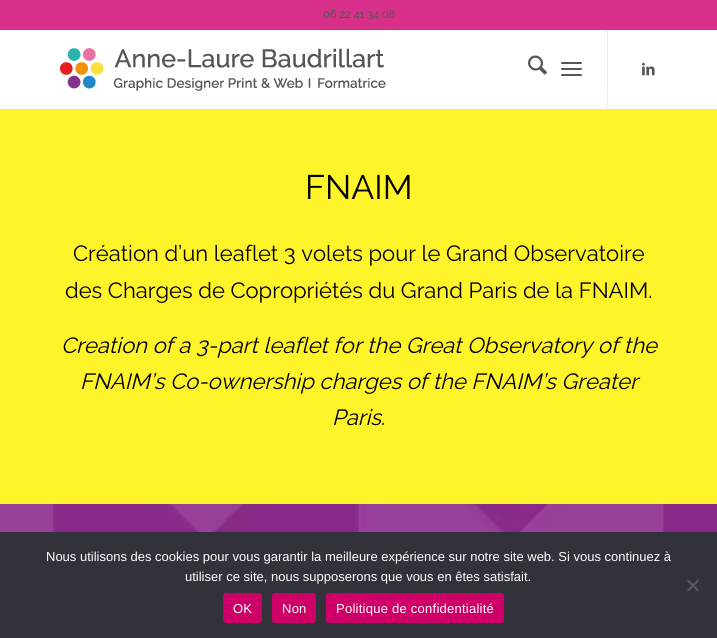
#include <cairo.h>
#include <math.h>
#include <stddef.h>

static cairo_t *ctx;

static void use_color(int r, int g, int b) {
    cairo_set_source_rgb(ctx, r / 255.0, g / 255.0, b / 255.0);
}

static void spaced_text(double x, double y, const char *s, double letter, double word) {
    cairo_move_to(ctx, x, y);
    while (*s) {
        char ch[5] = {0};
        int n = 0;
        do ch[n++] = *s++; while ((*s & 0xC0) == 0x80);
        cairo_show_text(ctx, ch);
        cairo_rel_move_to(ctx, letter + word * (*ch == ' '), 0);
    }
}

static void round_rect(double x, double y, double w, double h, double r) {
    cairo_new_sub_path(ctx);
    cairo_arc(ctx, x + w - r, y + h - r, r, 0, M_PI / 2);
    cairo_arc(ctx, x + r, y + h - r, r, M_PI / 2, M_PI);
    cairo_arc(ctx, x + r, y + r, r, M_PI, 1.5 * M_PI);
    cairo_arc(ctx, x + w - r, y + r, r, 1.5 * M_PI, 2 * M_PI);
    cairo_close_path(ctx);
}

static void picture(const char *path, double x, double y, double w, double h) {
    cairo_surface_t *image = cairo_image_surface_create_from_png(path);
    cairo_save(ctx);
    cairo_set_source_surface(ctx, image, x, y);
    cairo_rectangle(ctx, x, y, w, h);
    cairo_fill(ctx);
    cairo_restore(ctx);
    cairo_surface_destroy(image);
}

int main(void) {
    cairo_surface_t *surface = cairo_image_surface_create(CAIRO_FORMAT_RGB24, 717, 638);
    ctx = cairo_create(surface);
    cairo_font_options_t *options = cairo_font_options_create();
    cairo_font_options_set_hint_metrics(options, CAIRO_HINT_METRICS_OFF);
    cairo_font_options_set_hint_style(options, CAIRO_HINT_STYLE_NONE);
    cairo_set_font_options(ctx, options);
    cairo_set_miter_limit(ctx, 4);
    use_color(255, 255, 255);
    cairo_paint(ctx);
    use_color(235, 235, 235);
    cairo_rectangle(ctx, 607, 29, 1, 80);
    cairo_fill(ctx);
    use_color(216, 48, 138);
    cairo_rectangle(ctx, 0, 0, 717, 30);
    cairo_fill(ctx);
    cairo_select_font_face(ctx, "Raleway", CAIRO_FONT_SLANT_NORMAL, CAIRO_FONT_WEIGHT_BOLD);
    cairo_set_font_size(ctx, 11);
    use_color(87, 87, 86);
    cairo_move_to(ctx, 323, 18);
    cairo_show_text(ctx, "06 22 41 34 08");
    picture("img1.png", 60, 48, 326, 43);
    picture("img2.png", 528, 55, 19, 20);
    round_rect(561, 68, 21, 2, 1);
    cairo_fill(ctx);
    round_rect(561, 62, 21, 2, 1);
    cairo_fill(ctx);
    round_rect(561, 74, 21, 2, 1);
    cairo_fill(ctx);
    picture("img3.png", 642, 62, 13, 14);
    use_color(255, 243, 42);
    cairo_rectangle(ctx, 0, 109, 717, 395);
    cairo_fill(ctx);
    cairo_select_font_face(ctx, "Raleway Thin", CAIRO_FONT_SLANT_NORMAL, CAIRO_FONT_WEIGHT_NORMAL);
    cairo_set_font_size(ctx, 34);
    use_color(0, 0, 0);
    cairo_move_to(ctx, 305, 199);
    cairo_show_text(ctx, "FNAIM");
    cairo_set_font_size(ctx, 22);
    cairo_move_to(ctx, 73, 261);
    cairo_show_text(ctx, "Création d’un leaflet 3 volets pour le Grand Observatoire");
    cairo_move_to(ctx, 65, 298);
    cairo_show_text(ctx, "des Charges de Copropriétés du Grand Paris de la FNAIM.");
    cairo_select_font_face(ctx, "Raleway Thin", CAIRO_FONT_SLANT_ITALIC, CAIRO_FONT_WEIGHT_NORMAL);
    cairo_move_to(ctx, 61, 353);
    cairo_show_text(ctx, "Creation of a 3-part leaflet for the Great Observatory of the");
    cairo_move_to(ctx, 80, 389);
    cairo_show_text(ctx, "FNAIM’s Co-ownership charges of the FNAIM’s Greater");
    cairo_move_to(ctx, 332, 425);
    cairo_show_text(ctx, "Paris.");
    picture("img4.png", 0, 504, 717, 28);
    use_color(50, 50, 58);
    cairo_rectangle(ctx, 0, 532, 717, 106);
    cairo_fill(ctx);
    cairo_select_font_face(ctx, "Liberation Sans", CAIRO_FONT_SLANT_NORMAL, CAIRO_FONT_WEIGHT_NORMAL);
    cairo_set_font_size(ctx, 13);
    use_color(255, 255, 255);
    cairo_move_to(ctx, 46, 561);
    cairo_show_text(ctx, "Nous utilisons des cookies pour vous garantir la meilleure expérience sur notre site web. Si vous continuez à");
    cairo_move_to(ctx, 185, 581);
    cairo_show_text(ctx, "utiliser ce site, nous supposerons que vous en êtes satisfait.");
    use_color(89, 89, 93);
    cairo_new_path(ctx);
    cairo_move_to(ctx, 697.5, 579.5);
    cairo_line_to(ctx, 699, 581);
    cairo_line_to(ctx, 688.5, 591.5);
    cairo_line_to(ctx, 687, 590);
    cairo_close_path(ctx);
    cairo_fill(ctx);
    cairo_new_path(ctx);
    cairo_move_to(ctx, 687, 581);
    cairo_line_to(ctx, 688.5, 579.5);
    cairo_line_to(ctx, 699, 590);
    cairo_line_to(ctx, 697.5, 591.5);
    cairo_close_path(ctx);
    cairo_fill(ctx);
    use_color(206, 0, 103);
    round_rect(223, 593, 39, 30, 3);
    cairo_fill(ctx);
    use_color(255, 255, 255);
    spaced_text(233, 613, "OK", 0.25, 0);
    use_color(206, 0, 103);
    round_rect(272, 593, 44, 30, 3);
    cairo_fill(ctx);
    use_color(255, 255, 255);
    spaced_text(282, 613, "Non", 0.25, 0);
    use_color(206, 0, 103);
    round_rect(326, 593, 178, 30, 3);
    cairo_fill(ctx);
    use_color(255, 255, 255);
    spaced_text(336, 613, "Politique de confidentialité", 0.25, 0);
    cairo_surface_write_to_png(surface, "result.png");
    cairo_font_options_destroy(options);
    cairo_destroy(ctx);
    cairo_surface_destroy(surface);
    return 0;
}
